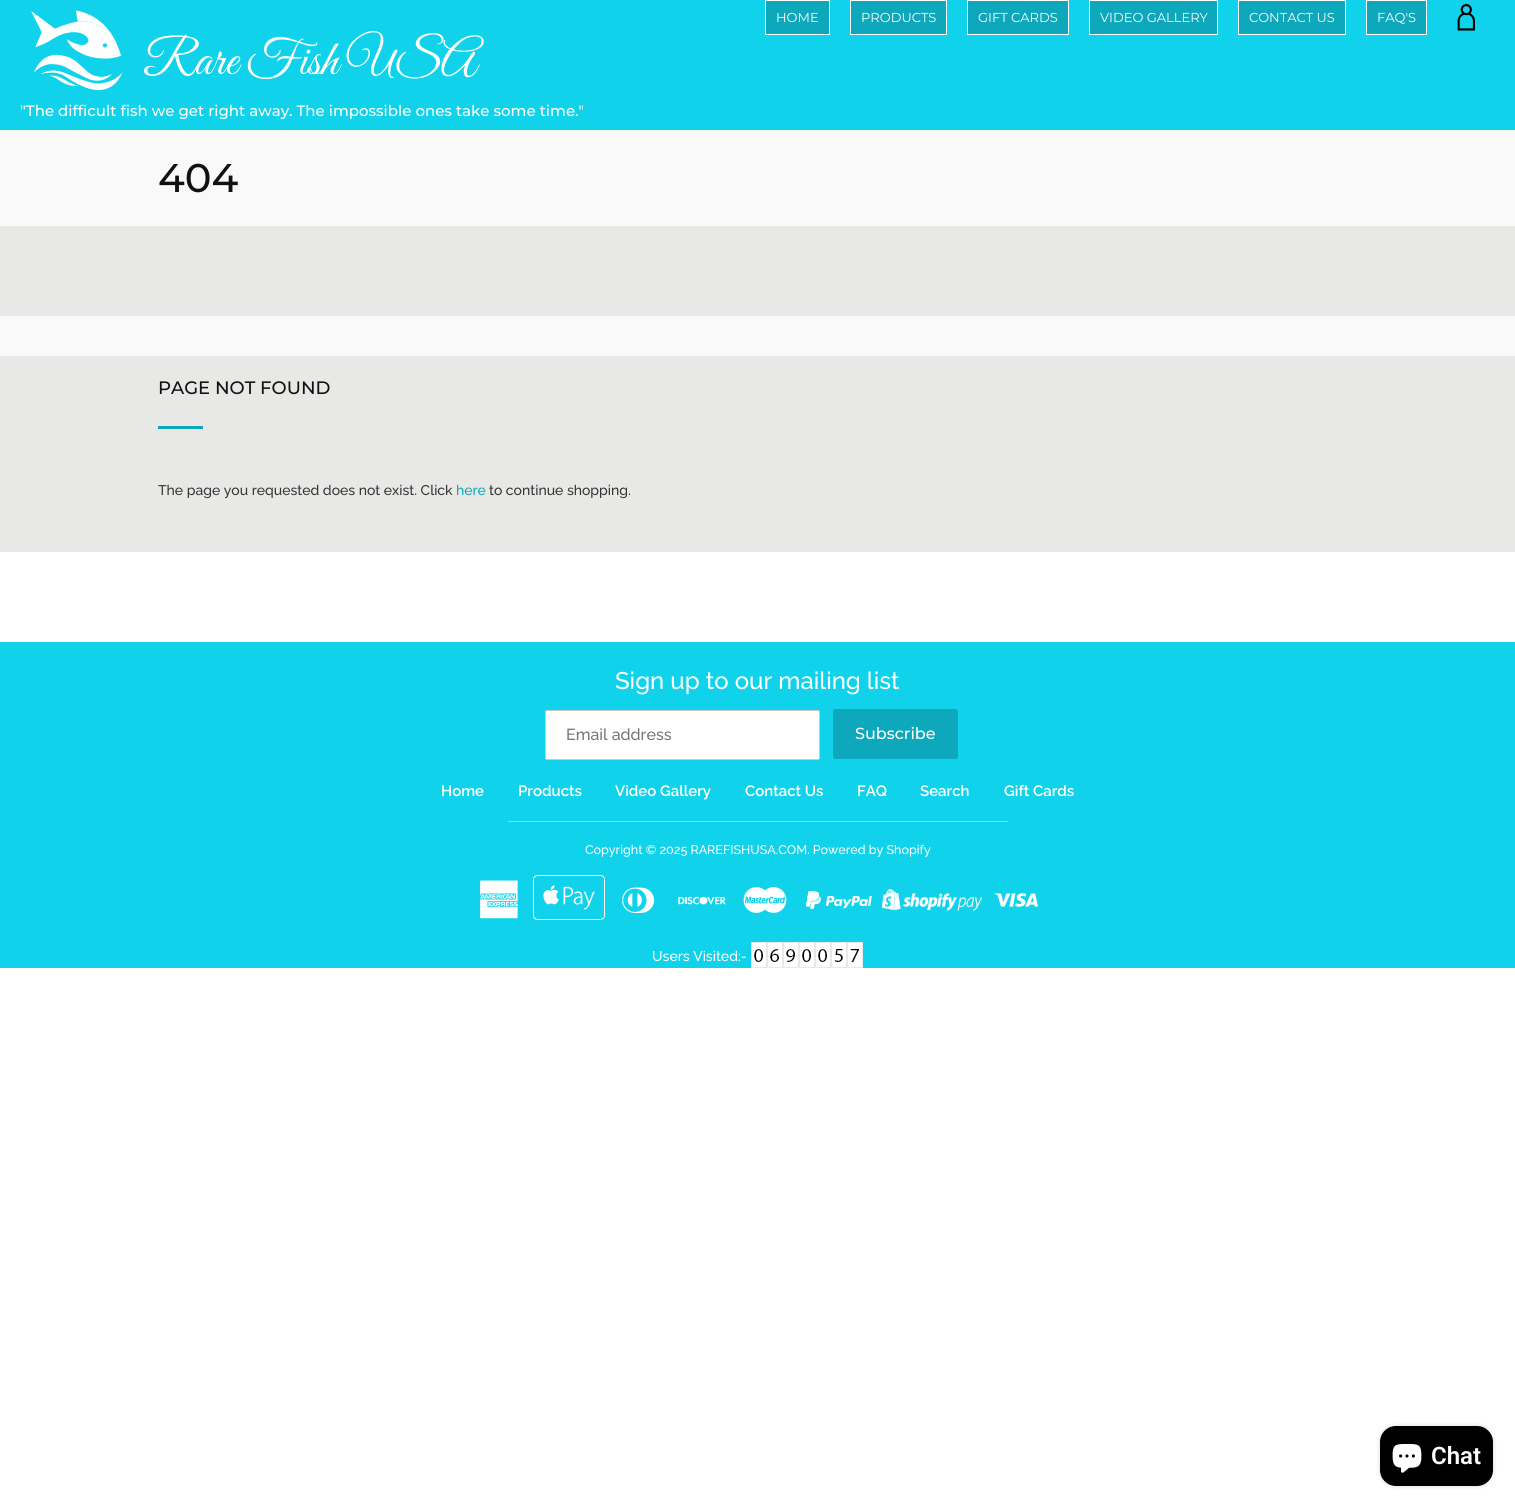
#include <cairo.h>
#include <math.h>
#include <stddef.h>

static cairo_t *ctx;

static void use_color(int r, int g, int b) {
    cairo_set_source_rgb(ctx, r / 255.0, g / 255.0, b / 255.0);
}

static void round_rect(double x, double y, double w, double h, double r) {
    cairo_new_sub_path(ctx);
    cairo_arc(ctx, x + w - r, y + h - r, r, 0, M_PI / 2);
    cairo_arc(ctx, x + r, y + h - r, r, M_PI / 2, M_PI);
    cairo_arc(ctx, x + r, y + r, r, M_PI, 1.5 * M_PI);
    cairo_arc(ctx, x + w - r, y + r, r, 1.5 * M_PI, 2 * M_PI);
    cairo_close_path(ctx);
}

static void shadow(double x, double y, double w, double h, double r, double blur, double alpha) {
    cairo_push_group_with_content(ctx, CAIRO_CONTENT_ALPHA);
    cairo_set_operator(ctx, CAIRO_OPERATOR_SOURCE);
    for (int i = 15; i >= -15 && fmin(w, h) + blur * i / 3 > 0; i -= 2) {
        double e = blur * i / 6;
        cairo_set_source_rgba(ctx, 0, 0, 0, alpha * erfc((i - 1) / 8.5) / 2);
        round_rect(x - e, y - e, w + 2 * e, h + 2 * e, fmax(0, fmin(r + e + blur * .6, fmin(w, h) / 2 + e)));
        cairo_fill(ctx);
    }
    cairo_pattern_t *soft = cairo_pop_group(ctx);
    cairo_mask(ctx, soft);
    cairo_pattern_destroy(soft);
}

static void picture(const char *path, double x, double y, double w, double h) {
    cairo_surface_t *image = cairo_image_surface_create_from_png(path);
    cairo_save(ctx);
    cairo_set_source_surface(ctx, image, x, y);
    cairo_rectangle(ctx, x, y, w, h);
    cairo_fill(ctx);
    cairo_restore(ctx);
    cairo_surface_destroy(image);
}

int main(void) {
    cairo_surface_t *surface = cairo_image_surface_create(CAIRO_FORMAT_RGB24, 1515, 1507);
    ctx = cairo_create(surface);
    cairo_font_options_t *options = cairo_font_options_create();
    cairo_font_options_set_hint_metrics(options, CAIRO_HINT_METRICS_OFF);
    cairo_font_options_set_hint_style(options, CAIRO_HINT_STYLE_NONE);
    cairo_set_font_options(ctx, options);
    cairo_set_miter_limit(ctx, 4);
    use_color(255, 255, 255);
    cairo_paint(ctx);
    use_color(16, 211, 235);
    cairo_rectangle(ctx, 0, 0, 1515, 130);
    cairo_fill(ctx);
    use_color(13, 168, 187);
    cairo_rectangle(ctx, 765.5, 0.5, 64, 34);
    cairo_fill_preserve(ctx);
    use_color(255, 255, 255);
    cairo_set_line_width(ctx, 1);
    cairo_stroke(ctx);
    cairo_select_font_face(ctx, "Montserrat", CAIRO_FONT_SLANT_NORMAL, CAIRO_FONT_WEIGHT_NORMAL);
    cairo_set_font_size(ctx, 13);
    cairo_move_to(ctx, 776, 22);
    cairo_show_text(ctx, "HOME");
    use_color(13, 168, 187);
    cairo_rectangle(ctx, 850.5, 0.5, 96, 34);
    cairo_fill_preserve(ctx);
    use_color(255, 255, 255);
    cairo_stroke(ctx);
    cairo_move_to(ctx, 861, 22);
    cairo_show_text(ctx, "PRODUCTS");
    use_color(13, 168, 187);
    cairo_rectangle(ctx, 967.5, 0.5, 101, 34);
    cairo_fill_preserve(ctx);
    use_color(255, 255, 255);
    cairo_stroke(ctx);
    cairo_move_to(ctx, 978, 22);
    cairo_show_text(ctx, "GIFT CARDS");
    use_color(13, 168, 187);
    cairo_rectangle(ctx, 1089.5, 0.5, 128, 34);
    cairo_fill_preserve(ctx);
    use_color(255, 255, 255);
    cairo_stroke(ctx);
    cairo_move_to(ctx, 1100, 22);
    cairo_show_text(ctx, "VIDEO GALLERY");
    use_color(13, 168, 187);
    cairo_rectangle(ctx, 1238.5, 0.5, 107, 34);
    cairo_fill_preserve(ctx);
    use_color(255, 255, 255);
    cairo_stroke(ctx);
    cairo_move_to(ctx, 1249, 22);
    cairo_show_text(ctx, "CONTACT US");
    use_color(13, 168, 187);
    cairo_rectangle(ctx, 1366.5, 0.5, 60, 34);
    cairo_fill_preserve(ctx);
    use_color(255, 255, 255);
    cairo_stroke(ctx);
    cairo_move_to(ctx, 1377, 22);
    cairo_show_text(ctx, "FAQ'S");
    picture("img1.png", 1457, 4, 18, 27);
    picture("img2.png", 31, 10, 92, 81);
    cairo_select_font_face(ctx, "Great Vibes", CAIRO_FONT_SLANT_NORMAL, CAIRO_FONT_WEIGHT_NORMAL);
    cairo_set_font_size(ctx, 50);
    cairo_move_to(ctx, 143, 74);
    cairo_show_text(ctx, "Rare Fish USA");
    cairo_select_font_face(ctx, "Montserrat Medium", CAIRO_FONT_SLANT_NORMAL, CAIRO_FONT_WEIGHT_NORMAL);
    cairo_set_font_size(ctx, 15);
    cairo_move_to(ctx, 20, 116);
    cairo_show_text(ctx, "\"The difficult fish we get right away. The impossible ones take some time.\"");
    use_color(232, 232, 231);
    cairo_rectangle(ctx, 0, 226, 1515, 326);
    cairo_fill(ctx);
    use_color(249, 249, 249);
    cairo_rectangle(ctx, 0, 130, 1515, 96);
    cairo_fill(ctx);
    cairo_set_font_size(ctx, 40);
    use_color(17, 17, 17);
    cairo_move_to(ctx, 158, 192);
    cairo_show_text(ctx, "404");
    use_color(249, 249, 249);
    cairo_rectangle(ctx, 0, 316, 1515, 40);
    cairo_fill(ctx);
    cairo_set_font_size(ctx, 18);
    use_color(17, 17, 17);
    cairo_move_to(ctx, 158, 394);
    cairo_show_text(ctx, "PAGE NOT FOUND");
    use_color(13, 168, 187);
    cairo_rectangle(ctx, 158, 426, 45, 3);
    cairo_fill(ctx);
    cairo_select_font_face(ctx, "Raleway Medium", CAIRO_FONT_SLANT_NORMAL, CAIRO_FONT_WEIGHT_NORMAL);
    cairo_set_font_size(ctx, 14);
    use_color(52, 52, 52);
    cairo_move_to(ctx, 158, 495);
    cairo_show_text(ctx, "The page you requested does not exist. Click");
    use_color(13, 168, 187);
    cairo_move_to(ctx, 456, 495);
    cairo_show_text(ctx, "here");
    use_color(52, 52, 52);
    cairo_move_to(ctx, 489, 495);
    cairo_show_text(ctx, "to continue shopping.");
    use_color(16, 211, 235);
    cairo_rectangle(ctx, 0, 642, 1515, 326);
    cairo_fill(ctx);
    cairo_set_font_size(ctx, 24);
    use_color(255, 255, 255);
    cairo_move_to(ctx, 615, 689);
    cairo_show_text(ctx, "Sign up to our mailing list");
    round_rect(545.5, 710.5, 274, 49, 1.5);
    cairo_fill_preserve(ctx);
    use_color(202, 202, 202);
    cairo_stroke(ctx);
    cairo_set_font_size(ctx, 16);
    use_color(117, 117, 117);
    cairo_move_to(ctx, 566, 740);
    cairo_show_text(ctx, "Email address");
    use_color(13, 168, 187);
    round_rect(833, 709, 125, 50, 2);
    cairo_fill(ctx);
    cairo_select_font_face(ctx, "Montserrat Medium", CAIRO_FONT_SLANT_NORMAL, CAIRO_FONT_WEIGHT_NORMAL);
    use_color(255, 255, 255);
    cairo_move_to(ctx, 855, 739);
    cairo_show_text(ctx, "Subscribe");
    cairo_select_font_face(ctx, "Raleway SemiBold", CAIRO_FONT_SLANT_NORMAL, CAIRO_FONT_WEIGHT_NORMAL);
    cairo_set_font_size(ctx, 15);
    cairo_move_to(ctx, 441, 796);
    cairo_show_text(ctx, "Home");
    cairo_move_to(ctx, 518, 796);
    cairo_show_text(ctx, "Products");
    cairo_move_to(ctx, 615, 796);
    cairo_show_text(ctx, "Video Gallery");
    cairo_move_to(ctx, 745, 796);
    cairo_show_text(ctx, "Contact Us");
    cairo_move_to(ctx, 857, 796);
    cairo_show_text(ctx, "FAQ");
    cairo_move_to(ctx, 920, 796);
    cairo_show_text(ctx, "Search");
    cairo_move_to(ctx, 1004, 796);
    cairo_show_text(ctx, "Gift Cards");
    use_color(108, 230, 245);
    cairo_rectangle(ctx, 508, 821, 500, 1);
    cairo_fill(ctx);
    cairo_select_font_face(ctx, "Raleway Medium", CAIRO_FONT_SLANT_NORMAL, CAIRO_FONT_WEIGHT_NORMAL);
    cairo_set_font_size(ctx, 12.5);
    use_color(255, 255, 255);
    cairo_move_to(ctx, 585, 854);
    cairo_show_text(ctx, "Copyright © 2025 RAREFISHUSA.COM. Powered by Shopify");
    picture("img3.png", 480, 880, 38, 39);
    picture("img4.png", 533, 875, 72, 45);
    picture("img5.png", 622, 887, 33, 26);
    picture("img6.png", 678, 896, 48, 9);
    picture("img7.png", 743, 887, 44, 26);
    picture("img8.png", 806, 891, 66, 18);
    picture("img9.png", 882, 889, 100, 22);
    picture("img10.png", 994, 893, 44, 14);
    cairo_set_font_size(ctx, 14);
    cairo_move_to(ctx, 652, 961);
    cairo_show_text(ctx, "Users Visited:-");
    picture("img11.png", 751, 942, 112, 26);
    use_color(0, 0, 0);
    shadow(1380, 1426, 113, 60, 16, 2.5, 0.15);
    use_color(0, 0, 0);
    round_rect(1380, 1426, 113, 60, 16);
    cairo_fill(ctx);
    picture("img12.png", 1392, 1444, 30, 29);
    cairo_select_font_face(ctx, "Roboto SemiBold", CAIRO_FONT_SLANT_NORMAL, CAIRO_FONT_WEIGHT_NORMAL);
    cairo_set_font_size(ctx, 24);
    use_color(255, 255, 255);
    cairo_move_to(ctx, 1431, 1464);
    cairo_show_text(ctx, "Chat");
    cairo_surface_write_to_png(surface, "result.png");
    cairo_font_options_destroy(options);
    cairo_destroy(ctx);
    cairo_surface_destroy(surface);
    return 0;
}
